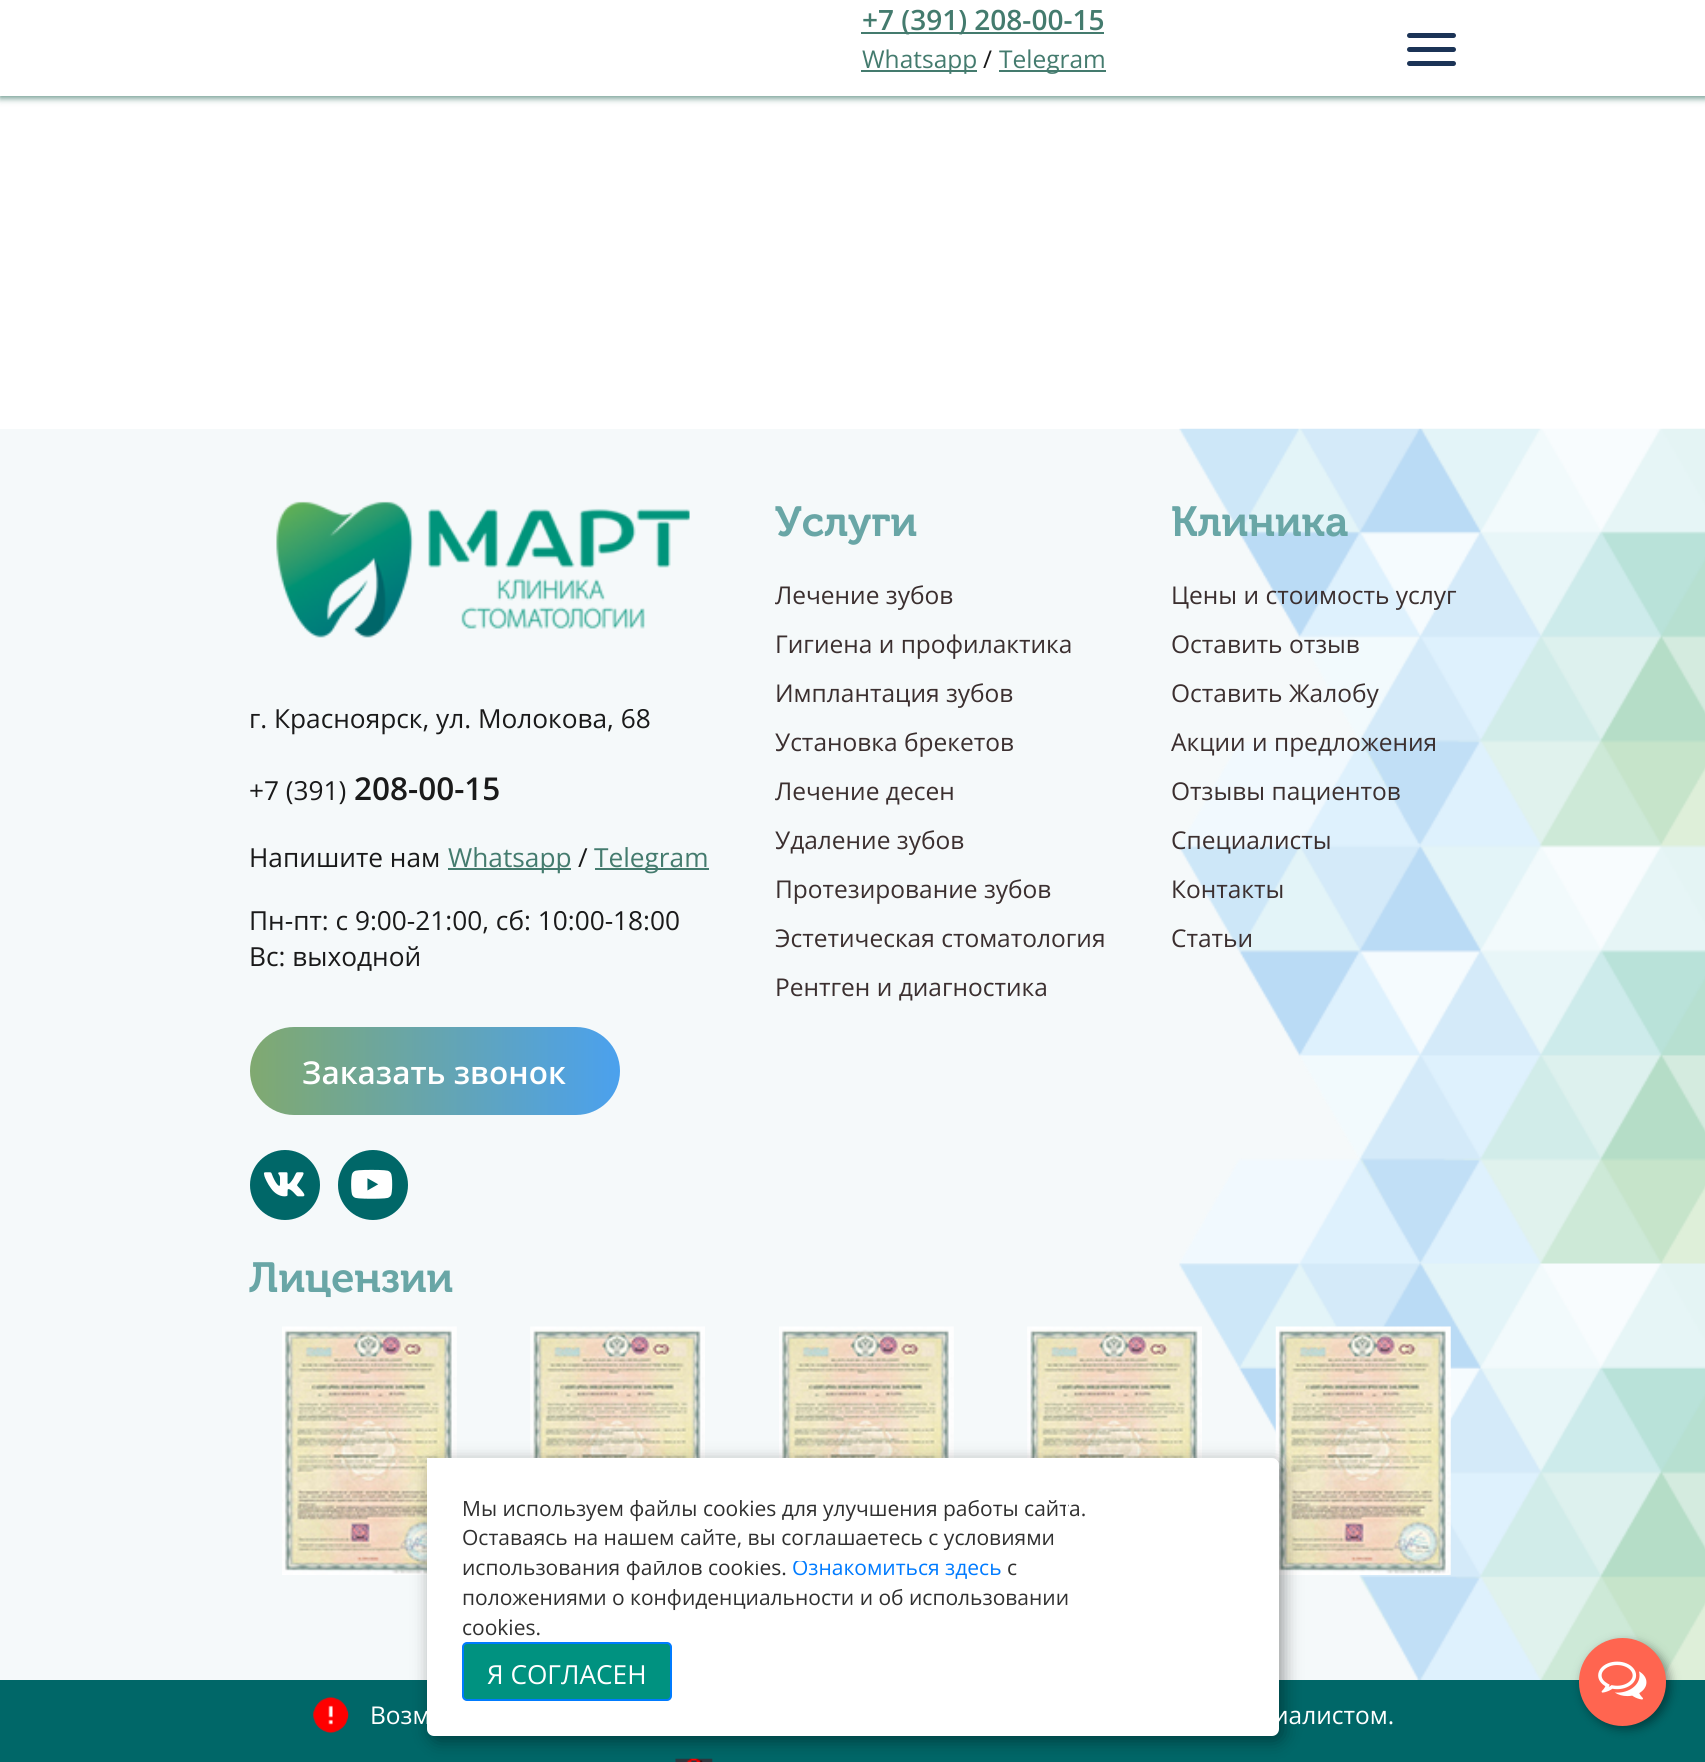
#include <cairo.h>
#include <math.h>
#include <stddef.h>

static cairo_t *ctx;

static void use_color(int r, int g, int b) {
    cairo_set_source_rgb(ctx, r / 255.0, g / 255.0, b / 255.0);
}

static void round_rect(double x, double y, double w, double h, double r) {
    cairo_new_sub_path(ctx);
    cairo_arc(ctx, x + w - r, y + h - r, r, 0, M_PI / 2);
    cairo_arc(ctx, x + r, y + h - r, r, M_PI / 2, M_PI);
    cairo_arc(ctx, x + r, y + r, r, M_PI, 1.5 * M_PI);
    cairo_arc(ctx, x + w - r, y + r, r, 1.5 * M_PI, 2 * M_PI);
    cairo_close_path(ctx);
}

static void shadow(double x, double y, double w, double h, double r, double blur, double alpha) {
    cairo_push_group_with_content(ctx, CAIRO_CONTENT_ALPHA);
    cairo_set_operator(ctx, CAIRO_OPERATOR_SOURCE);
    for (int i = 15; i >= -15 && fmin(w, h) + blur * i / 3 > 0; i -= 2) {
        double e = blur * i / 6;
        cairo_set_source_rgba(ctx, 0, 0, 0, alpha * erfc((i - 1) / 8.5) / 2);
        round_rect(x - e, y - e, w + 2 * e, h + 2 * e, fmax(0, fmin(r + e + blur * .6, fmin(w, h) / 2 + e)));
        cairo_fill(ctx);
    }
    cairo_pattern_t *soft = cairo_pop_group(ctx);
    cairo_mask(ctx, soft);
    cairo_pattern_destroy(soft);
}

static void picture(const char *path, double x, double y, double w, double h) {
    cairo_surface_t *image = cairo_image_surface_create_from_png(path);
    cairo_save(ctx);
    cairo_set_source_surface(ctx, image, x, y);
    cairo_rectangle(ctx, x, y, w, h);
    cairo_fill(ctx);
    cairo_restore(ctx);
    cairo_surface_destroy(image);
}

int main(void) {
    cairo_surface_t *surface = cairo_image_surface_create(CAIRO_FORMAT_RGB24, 1705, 1762);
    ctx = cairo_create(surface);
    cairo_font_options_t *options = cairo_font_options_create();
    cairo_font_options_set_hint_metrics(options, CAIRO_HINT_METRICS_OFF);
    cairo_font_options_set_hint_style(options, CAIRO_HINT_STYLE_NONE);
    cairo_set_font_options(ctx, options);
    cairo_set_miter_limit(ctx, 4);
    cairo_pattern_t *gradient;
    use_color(255, 255, 255);
    cairo_paint(ctx);
    use_color(68, 123, 110);
    shadow(0, 2, 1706, 96, 0, 3.5, 0.83);
    use_color(255, 255, 255);
    cairo_rectangle(ctx, 0, 0, 1705, 96);
    cairo_fill(ctx);
    use_color(68, 123, 110);
    cairo_rectangle(ctx, 861, 32, 243, 2);
    cairo_fill(ctx);
    cairo_select_font_face(ctx, "Open Sans SemiBold", CAIRO_FONT_SLANT_NORMAL, CAIRO_FONT_WEIGHT_NORMAL);
    cairo_set_font_size(ctx, 28);
    cairo_move_to(ctx, 862, 30);
    cairo_show_text(ctx, "+7 (391) 208-00-15");
    cairo_rectangle(ctx, 861, 70, 116, 2);
    cairo_fill(ctx);
    cairo_select_font_face(ctx, "Open Sans", CAIRO_FONT_SLANT_NORMAL, CAIRO_FONT_WEIGHT_NORMAL);
    cairo_set_font_size(ctx, 24.5);
    cairo_move_to(ctx, 862, 68);
    cairo_show_text(ctx, "Whatsapp");
    use_color(26, 26, 26);
    cairo_move_to(ctx, 983, 68);
    cairo_show_text(ctx, "/");
    use_color(68, 123, 110);
    cairo_rectangle(ctx, 999, 70, 107, 2);
    cairo_fill(ctx);
    cairo_move_to(ctx, 999, 68);
    cairo_show_text(ctx, "Telegram");
    use_color(27, 51, 86);
    round_rect(1407, 33, 49, 5, 2.5);
    cairo_fill(ctx);
    round_rect(1407, 47, 49, 5, 2.5);
    cairo_fill(ctx);
    round_rect(1407, 61, 49, 5, 2.5);
    cairo_fill(ctx);
    use_color(245, 249, 250);
    cairo_rectangle(ctx, 0, 429, 1422, 1251);
    cairo_fill(ctx);
    picture("img1.png", 1179, 428, 526, 1252);
    cairo_select_font_face(ctx, "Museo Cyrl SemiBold", CAIRO_FONT_SLANT_NORMAL, CAIRO_FONT_WEIGHT_NORMAL);
    cairo_set_font_size(ctx, 42);
    use_color(105, 166, 166);
    cairo_move_to(ctx, 775, 536);
    cairo_show_text(ctx, "Услуги");
    cairo_select_font_face(ctx, "Open Sans", CAIRO_FONT_SLANT_NORMAL, CAIRO_FONT_WEIGHT_NORMAL);
    cairo_set_font_size(ctx, 24.5);
    use_color(59, 47, 47);
    cairo_move_to(ctx, 775, 604);
    cairo_show_text(ctx, "Лечение зубов");
    cairo_move_to(ctx, 775, 653);
    cairo_show_text(ctx, "Гигиена и профилактика");
    cairo_move_to(ctx, 775, 702);
    cairo_show_text(ctx, "Имплантация зубов");
    cairo_move_to(ctx, 775, 751);
    cairo_show_text(ctx, "Установка брекетов");
    cairo_move_to(ctx, 775, 800);
    cairo_show_text(ctx, "Лечение десен");
    cairo_move_to(ctx, 775, 849);
    cairo_show_text(ctx, "Удаление зубов");
    cairo_move_to(ctx, 775, 898);
    cairo_show_text(ctx, "Протезирование зубов");
    cairo_move_to(ctx, 775, 947);
    cairo_show_text(ctx, "Эстетическая стоматология");
    cairo_move_to(ctx, 775, 996);
    cairo_show_text(ctx, "Рентген и диагностика");
    cairo_select_font_face(ctx, "Museo Cyrl SemiBold", CAIRO_FONT_SLANT_NORMAL, CAIRO_FONT_WEIGHT_NORMAL);
    cairo_set_font_size(ctx, 42);
    use_color(105, 166, 166);
    cairo_move_to(ctx, 1171, 536);
    cairo_show_text(ctx, "Клиника");
    cairo_select_font_face(ctx, "Open Sans", CAIRO_FONT_SLANT_NORMAL, CAIRO_FONT_WEIGHT_NORMAL);
    cairo_set_font_size(ctx, 24.5);
    use_color(59, 47, 47);
    cairo_move_to(ctx, 1171, 604);
    cairo_show_text(ctx, "Цены и стоимость услуг");
    cairo_move_to(ctx, 1171, 653);
    cairo_show_text(ctx, "Оставить отзыв");
    cairo_move_to(ctx, 1171, 702);
    cairo_show_text(ctx, "Оставить Жалобу");
    cairo_move_to(ctx, 1171, 751);
    cairo_show_text(ctx, "Акции и предложения");
    cairo_move_to(ctx, 1171, 800);
    cairo_show_text(ctx, "Отзывы пациентов");
    cairo_move_to(ctx, 1171, 849);
    cairo_show_text(ctx, "Специалисты");
    cairo_move_to(ctx, 1171, 898);
    cairo_show_text(ctx, "Контакты");
    cairo_move_to(ctx, 1171, 947);
    cairo_show_text(ctx, "Статьи");
    picture("img2.png", 276, 501, 414, 137);
    cairo_set_font_size(ctx, 26.25);
    use_color(26, 26, 26);
    cairo_move_to(ctx, 249, 728);
    cairo_show_text(ctx, "г. Красноярск, ул. Молокова, 68");
    cairo_move_to(ctx, 249, 800);
    cairo_show_text(ctx, "+7 (391)");
    cairo_select_font_face(ctx, "Open Sans SemiBold", CAIRO_FONT_SLANT_NORMAL, CAIRO_FONT_WEIGHT_NORMAL);
    cairo_set_font_size(ctx, 31.5);
    cairo_move_to(ctx, 354, 800);
    cairo_show_text(ctx, "208-00-15");
    cairo_select_font_face(ctx, "Open Sans", CAIRO_FONT_SLANT_NORMAL, CAIRO_FONT_WEIGHT_NORMAL);
    cairo_set_font_size(ctx, 26.25);
    cairo_move_to(ctx, 249, 867);
    cairo_show_text(ctx, "Напишите нам");
    use_color(68, 123, 110);
    cairo_rectangle(ctx, 448, 868, 123, 2);
    cairo_fill(ctx);
    cairo_move_to(ctx, 448, 867);
    cairo_show_text(ctx, "Whatsapp");
    use_color(26, 26, 26);
    cairo_move_to(ctx, 578, 867);
    cairo_show_text(ctx, "/");
    use_color(68, 123, 110);
    cairo_rectangle(ctx, 595, 868, 114, 2);
    cairo_fill(ctx);
    cairo_move_to(ctx, 594, 867);
    cairo_show_text(ctx, "Telegram");
    use_color(26, 26, 26);
    cairo_move_to(ctx, 249, 930);
    cairo_show_text(ctx, "Пн-пт: с 9:00-21:00, сб: 10:00-18:00");
    cairo_move_to(ctx, 249, 966);
    cairo_show_text(ctx, "Вс: выходной");
    gradient = cairo_pattern_create_linear(250, 1071, 620, 1071);
    cairo_pattern_add_color_stop_rgba(gradient, 0, 0.502, 0.663, 0.439, 1);
    cairo_pattern_add_color_stop_rgba(gradient, 1, 0.294, 0.631, 0.933, 1);
    cairo_set_source(ctx, gradient);
    cairo_pattern_destroy(gradient);
    round_rect(250, 1027, 370, 88, 44);
    cairo_fill(ctx);
    cairo_select_font_face(ctx, "Open Sans SemiBold", CAIRO_FONT_SLANT_NORMAL, CAIRO_FONT_WEIGHT_NORMAL);
    cairo_set_font_size(ctx, 31.5);
    use_color(255, 255, 255);
    cairo_move_to(ctx, 302, 1084);
    cairo_show_text(ctx, "Заказать звонок");
    use_color(0, 103, 104);
    cairo_new_path(ctx);
    cairo_arc(ctx, 285, 1185, 35, 0, 2 * M_PI);
    cairo_fill(ctx);
    picture("img3.png", 263, 1172, 42, 25);
    cairo_arc(ctx, 373, 1185, 35, 0, 2 * M_PI);
    cairo_fill(ctx);
    picture("img4.png", 351, 1169, 42, 30);
    picture("img5.png", 282, 1326, 175, 249);
    picture("img6.png", 530, 1326, 175, 132);
    picture("img7.png", 779, 1326, 175, 132);
    picture("img8.png", 1027, 1326, 175, 132);
    picture("img9.png", 1275, 1326, 176, 249);
    cairo_rectangle(ctx, 0, 1680, 1705, 82);
    cairo_fill(ctx);
    picture("img11.png", 675, 1758, 38, 4);
    use_color(0, 0, 0);
    shadow(431, 1463, 852, 278, 7, 9, 0.4);
    use_color(255, 255, 255);
    round_rect(427, 1458, 852, 278, 7);
    cairo_fill(ctx);
    cairo_select_font_face(ctx, "Open Sans", CAIRO_FONT_SLANT_NORMAL, CAIRO_FONT_WEIGHT_NORMAL);
    cairo_set_font_size(ctx, 21);
    use_color(48, 48, 48);
    cairo_move_to(ctx, 462, 1516);
    cairo_show_text(ctx, "Мы используем файлы cookies для улучшения работы сайта.");
    cairo_move_to(ctx, 462, 1545);
    cairo_show_text(ctx, "Оставаясь на нашем сайте, вы соглашаетесь с условиями");
    cairo_move_to(ctx, 462, 1575);
    cairo_show_text(ctx, "использования файлов cookies.");
    use_color(0, 123, 255);
    cairo_move_to(ctx, 792, 1575);
    cairo_show_text(ctx, "Ознакомиться здесь");
    use_color(48, 48, 48);
    cairo_move_to(ctx, 1007, 1575);
    cairo_show_text(ctx, "с");
    cairo_move_to(ctx, 462, 1605);
    cairo_show_text(ctx, "положениями о конфиденциальности и об использовании");
    cairo_move_to(ctx, 462, 1635);
    cairo_show_text(ctx, "cookies.");
    use_color(0, 146, 128);
    round_rect(463, 1643, 208, 57, 4);
    cairo_fill_preserve(ctx);
    use_color(0, 123, 255);
    cairo_stroke(ctx);
    cairo_rectangle(ctx, 428, 1459, 639, 101);
    use_color(255, 255, 255);
    cairo_stroke(ctx);
    cairo_set_font_size(ctx, 26.25);
    cairo_move_to(ctx, 487, 1684);
    cairo_show_text(ctx, "Я СОГЛАСЕН");
    cairo_select_font_face(ctx, "Museo Cyrl SemiBold", CAIRO_FONT_SLANT_NORMAL, CAIRO_FONT_WEIGHT_NORMAL);
    cairo_set_font_size(ctx, 42);
    use_color(105, 166, 166);
    cairo_move_to(ctx, 249, 1292);
    cairo_show_text(ctx, "Лицензии");
    picture("img10.png", 313, 1697, 36, 36);
    cairo_select_font_face(ctx, "Open Sans", CAIRO_FONT_SLANT_NORMAL, CAIRO_FONT_WEIGHT_NORMAL);
    cairo_set_font_size(ctx, 24.5);
    use_color(255, 255, 255);
    cairo_move_to(ctx, 370, 1724);
    cairo_show_text(ctx, "Возм");
    cairo_move_to(ctx, 1273, 1724);
    cairo_show_text(ctx, "иалистом.");
    use_color(0, 0, 0);
    shadow(1582, 1642, 88, 87, 43.5, 5, 0.4);
    use_color(255, 101, 80);
    round_rect(1579, 1638, 87, 88, 43.5);
    cairo_fill(ctx);
    picture("img12.png", 1598, 1661, 49, 39);
    cairo_surface_write_to_png(surface, "result.png");
    cairo_font_options_destroy(options);
    cairo_destroy(ctx);
    cairo_surface_destroy(surface);
    return 0;
}
